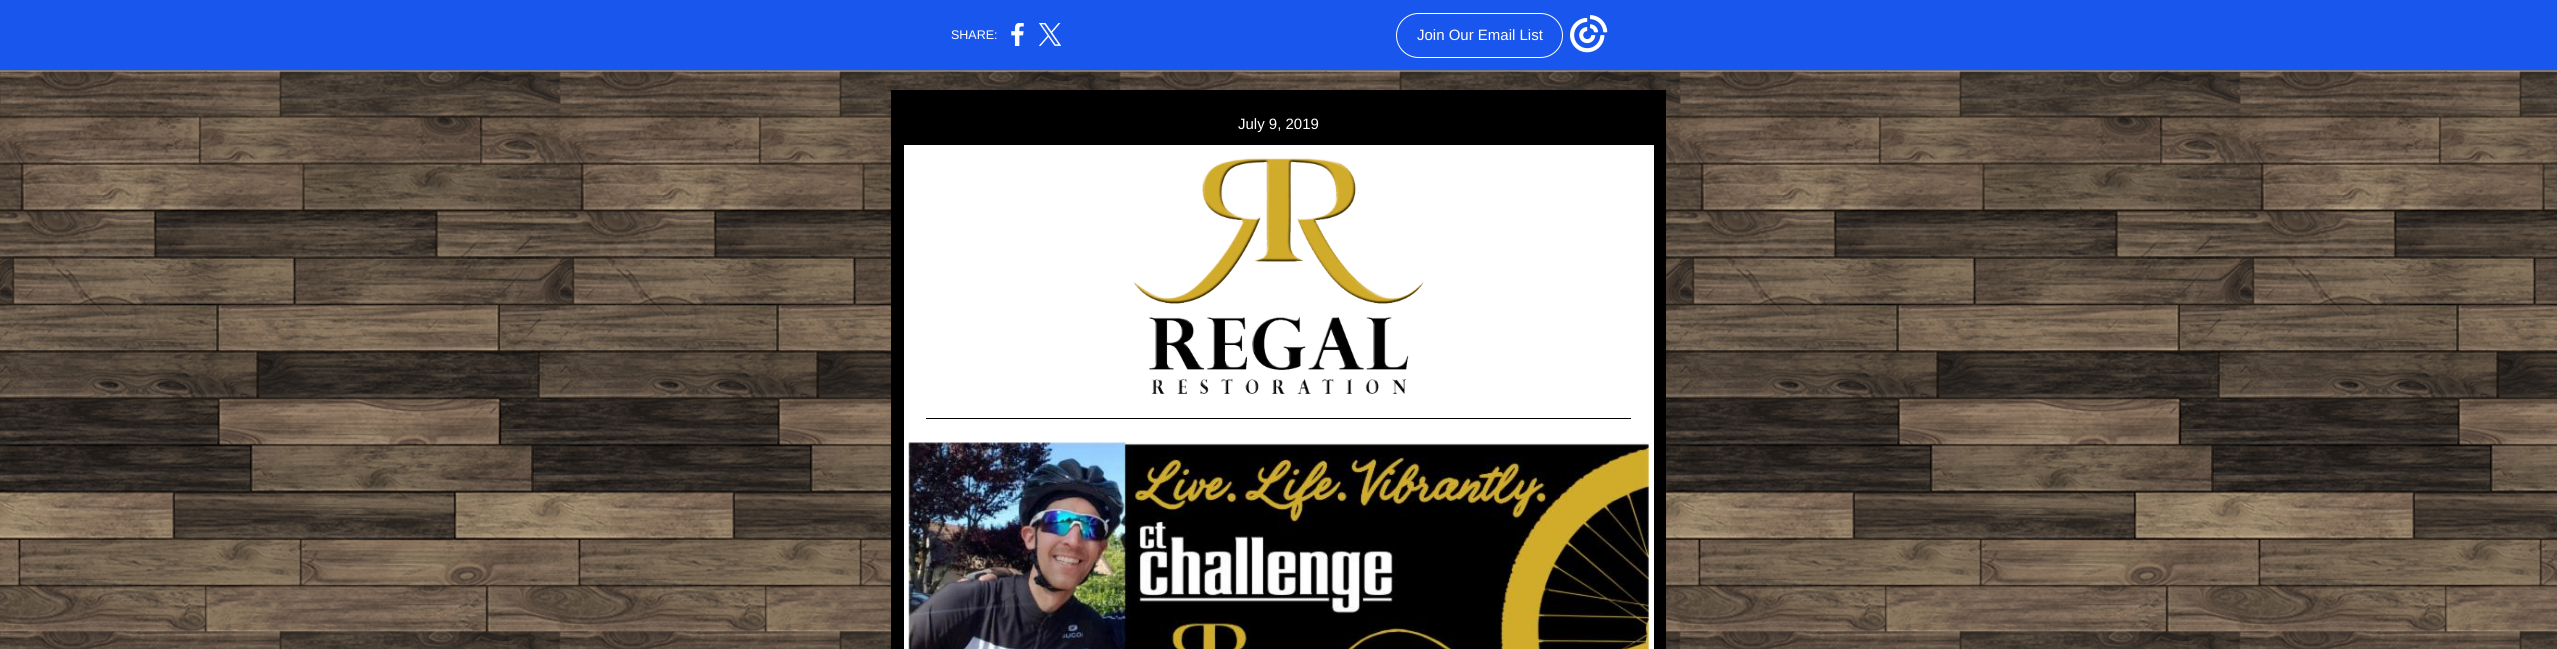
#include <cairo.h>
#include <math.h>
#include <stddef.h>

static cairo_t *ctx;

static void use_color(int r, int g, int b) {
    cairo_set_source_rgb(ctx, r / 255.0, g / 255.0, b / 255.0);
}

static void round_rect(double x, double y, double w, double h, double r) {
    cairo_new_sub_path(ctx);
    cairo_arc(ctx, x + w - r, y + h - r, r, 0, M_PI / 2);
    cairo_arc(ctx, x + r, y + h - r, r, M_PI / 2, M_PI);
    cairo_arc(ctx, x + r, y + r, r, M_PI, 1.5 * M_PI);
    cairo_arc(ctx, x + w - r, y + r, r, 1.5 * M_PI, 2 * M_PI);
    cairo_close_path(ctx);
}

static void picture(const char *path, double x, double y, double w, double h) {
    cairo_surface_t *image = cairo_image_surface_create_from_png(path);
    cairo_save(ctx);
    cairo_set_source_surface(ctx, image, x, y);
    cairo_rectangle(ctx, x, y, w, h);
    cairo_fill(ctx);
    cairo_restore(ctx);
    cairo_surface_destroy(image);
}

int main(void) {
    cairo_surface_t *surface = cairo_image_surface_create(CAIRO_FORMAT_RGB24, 2557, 649);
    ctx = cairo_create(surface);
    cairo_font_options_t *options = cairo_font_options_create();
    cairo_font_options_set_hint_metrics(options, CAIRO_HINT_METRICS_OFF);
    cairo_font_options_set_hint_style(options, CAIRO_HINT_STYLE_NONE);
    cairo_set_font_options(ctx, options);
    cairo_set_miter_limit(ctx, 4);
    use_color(255, 255, 255);
    cairo_paint(ctx);
    use_color(24, 86, 237);
    cairo_rectangle(ctx, 0, 0, 2557, 70);
    cairo_fill(ctx);
    use_color(122, 122, 122);
    cairo_rectangle(ctx, 0, 70, 2557, 1);
    cairo_fill(ctx);
    cairo_select_font_face(ctx, "Liberation Sans", CAIRO_FONT_SLANT_NORMAL, CAIRO_FONT_WEIGHT_NORMAL);
    cairo_set_font_size(ctx, 12.5);
    use_color(255, 255, 255);
    cairo_move_to(ctx, 951, 39);
    cairo_show_text(ctx, "SHARE:");
    picture("img1.png", 1011, 23, 13, 23);
    picture("img2.png", 1039, 23, 22, 23);
    round_rect(1396.5, 13.5, 166, 44, 22);
    cairo_set_line_width(ctx, 1);
    cairo_stroke(ctx);
    cairo_set_font_size(ctx, 15);
    cairo_move_to(ctx, 1417, 40);
    cairo_show_text(ctx, "Join Our Email List");
    picture("img3.png", 1570, 15, 38, 38);
    picture("img4.png", 0, 71, 2557, 578);
    use_color(0, 0, 0);
    cairo_rectangle(ctx, 891, 90, 775, 559);
    cairo_fill(ctx);
    use_color(255, 255, 255);
    cairo_rectangle(ctx, 904, 145, 750, 504);
    cairo_fill(ctx);
    cairo_move_to(ctx, 1238, 129);
    cairo_show_text(ctx, "July 9, 2019");
    picture("img5.png", 1133, 158, 291, 236);
    use_color(0, 0, 0);
    cairo_rectangle(ctx, 926, 418, 705, 1);
    cairo_fill(ctx);
    picture("img6.png", 908, 442, 741, 207);
    cairo_surface_write_to_png(surface, "result.png");
    cairo_font_options_destroy(options);
    cairo_destroy(ctx);
    cairo_surface_destroy(surface);
    return 0;
}
